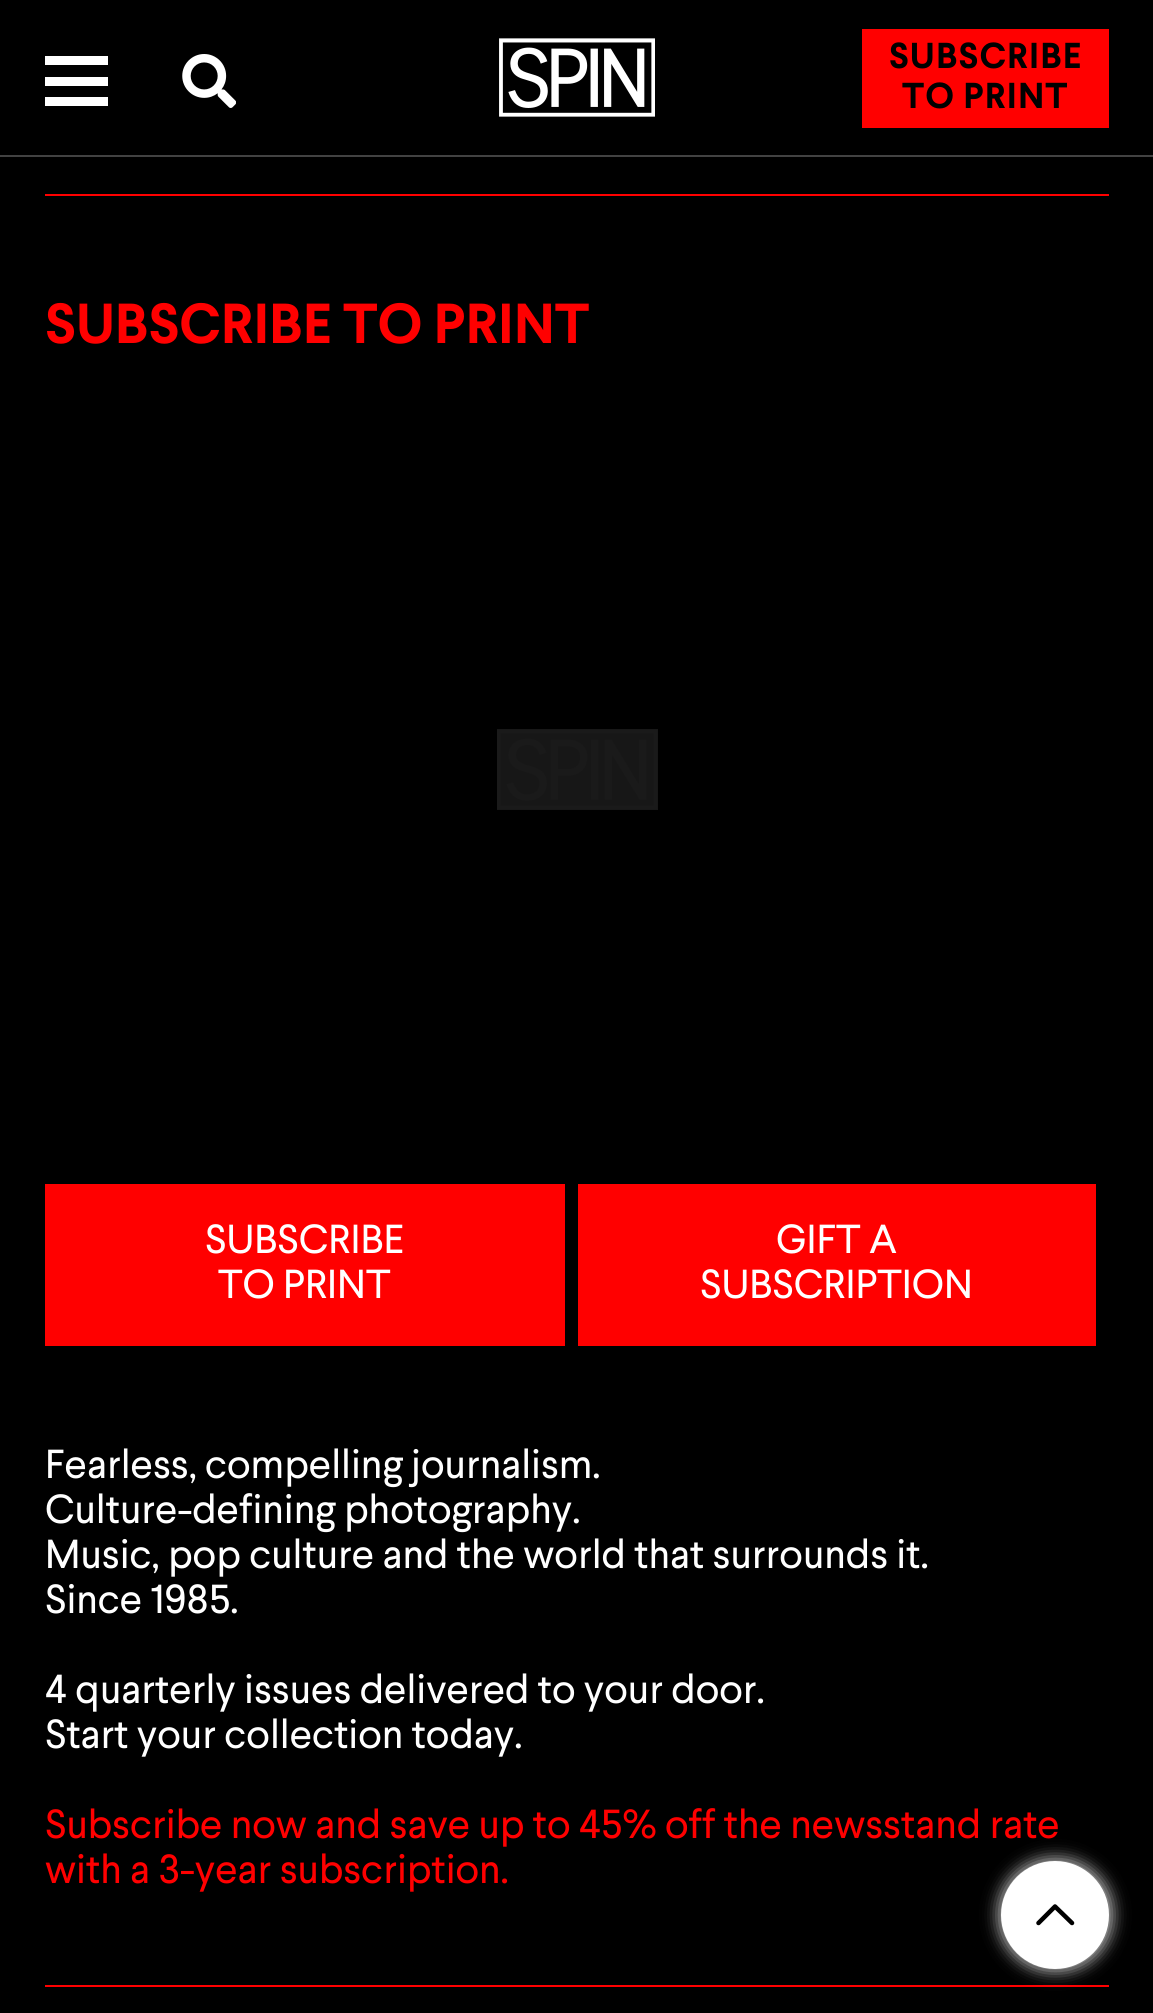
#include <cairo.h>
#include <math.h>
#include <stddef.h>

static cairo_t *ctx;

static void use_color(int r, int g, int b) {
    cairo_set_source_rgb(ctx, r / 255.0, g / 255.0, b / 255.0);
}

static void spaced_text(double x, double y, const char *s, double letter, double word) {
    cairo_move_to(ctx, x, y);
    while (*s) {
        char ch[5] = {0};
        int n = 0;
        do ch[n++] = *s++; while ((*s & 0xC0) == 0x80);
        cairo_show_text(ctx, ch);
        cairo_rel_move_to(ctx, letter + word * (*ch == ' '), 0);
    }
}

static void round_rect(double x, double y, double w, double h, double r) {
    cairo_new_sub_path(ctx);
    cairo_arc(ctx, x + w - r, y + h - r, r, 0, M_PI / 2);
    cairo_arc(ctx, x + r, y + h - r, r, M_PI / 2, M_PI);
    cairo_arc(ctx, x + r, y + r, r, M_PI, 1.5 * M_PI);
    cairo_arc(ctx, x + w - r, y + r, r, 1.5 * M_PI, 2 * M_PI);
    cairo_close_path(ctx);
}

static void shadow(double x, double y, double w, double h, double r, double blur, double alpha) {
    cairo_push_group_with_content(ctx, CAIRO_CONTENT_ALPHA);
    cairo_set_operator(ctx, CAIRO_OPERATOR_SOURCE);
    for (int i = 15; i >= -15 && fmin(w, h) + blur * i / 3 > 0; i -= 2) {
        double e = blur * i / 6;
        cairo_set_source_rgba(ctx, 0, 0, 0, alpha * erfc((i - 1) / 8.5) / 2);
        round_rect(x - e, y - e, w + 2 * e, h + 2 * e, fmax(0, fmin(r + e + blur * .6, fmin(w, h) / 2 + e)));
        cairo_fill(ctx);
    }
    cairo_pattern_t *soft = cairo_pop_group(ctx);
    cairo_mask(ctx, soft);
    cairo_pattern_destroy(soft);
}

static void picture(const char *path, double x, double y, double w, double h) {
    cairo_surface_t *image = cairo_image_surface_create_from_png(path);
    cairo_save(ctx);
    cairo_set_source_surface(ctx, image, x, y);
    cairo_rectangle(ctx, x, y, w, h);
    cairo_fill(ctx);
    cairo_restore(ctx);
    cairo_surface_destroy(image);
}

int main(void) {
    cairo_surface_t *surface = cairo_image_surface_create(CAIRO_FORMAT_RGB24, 1153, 2013);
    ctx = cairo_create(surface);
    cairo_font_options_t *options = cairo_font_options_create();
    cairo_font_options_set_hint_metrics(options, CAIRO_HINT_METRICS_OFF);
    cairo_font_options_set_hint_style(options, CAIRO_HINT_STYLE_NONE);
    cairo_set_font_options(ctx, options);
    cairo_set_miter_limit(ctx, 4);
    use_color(0, 0, 0);
    cairo_paint(ctx);
    use_color(66, 66, 66);
    cairo_rectangle(ctx, 0, 155, 1153, 2);
    cairo_fill(ctx);
    use_color(255, 255, 255);
    cairo_rectangle(ctx, 45, 97, 63, 9);
    cairo_fill(ctx);
    cairo_rectangle(ctx, 45, 56, 63, 9);
    cairo_fill(ctx);
    cairo_rectangle(ctx, 45, 77, 63, 9);
    cairo_fill(ctx);
    picture("img1.png", 182, 54, 54, 54);
    picture("img2.png", 499, 38, 156, 79);
    use_color(255, 0, 0);
    cairo_rectangle(ctx, 862, 29, 247, 99);
    cairo_fill(ctx);
    cairo_select_font_face(ctx, "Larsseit", CAIRO_FONT_SLANT_NORMAL, CAIRO_FONT_WEIGHT_BOLD);
    cairo_set_font_size(ctx, 36);
    use_color(0, 0, 0);
    spaced_text(889, 68, "SUBSCRIBE", 1.1, 0);
    spaced_text(902, 108, "TO PRINT", 1.1, 0);
    use_color(255, 0, 0);
    cairo_rectangle(ctx, 45, 194, 1064, 2);
    cairo_fill(ctx);
    cairo_rectangle(ctx, 45, 1985, 1064, 2);
    cairo_fill(ctx);
    cairo_set_font_size(ctx, 56.25);
    cairo_move_to(ctx, 45, 343);
    cairo_show_text(ctx, "SUBSCRIBE TO PRINT");
    picture("img3.png", 497, 729, 161, 81);
    cairo_rectangle(ctx, 45, 1184, 520, 162);
    cairo_fill(ctx);
    cairo_select_font_face(ctx, "Larsseit", CAIRO_FONT_SLANT_NORMAL, CAIRO_FONT_WEIGHT_NORMAL);
    cairo_set_font_size(ctx, 40.5);
    use_color(255, 255, 255);
    cairo_move_to(ctx, 205, 1253);
    cairo_show_text(ctx, "SUBSCRIBE");
    cairo_move_to(ctx, 218, 1298);
    cairo_show_text(ctx, "TO PRINT");
    use_color(255, 0, 0);
    cairo_rectangle(ctx, 578, 1184, 518, 162);
    cairo_fill(ctx);
    use_color(255, 255, 255);
    cairo_move_to(ctx, 776, 1253);
    cairo_show_text(ctx, "GIFT A");
    cairo_move_to(ctx, 700, 1298);
    cairo_show_text(ctx, "SUBSCRIPTION");
    cairo_move_to(ctx, 45, 1478);
    cairo_show_text(ctx, "Fearless, compelling journalism.");
    cairo_move_to(ctx, 45, 1523);
    cairo_show_text(ctx, "Culture-defining photography.");
    cairo_move_to(ctx, 45, 1568);
    cairo_show_text(ctx, "Music, pop culture and the world that surrounds it.");
    cairo_move_to(ctx, 45, 1613);
    cairo_show_text(ctx, "Since 1985.");
    cairo_move_to(ctx, 45, 1703);
    cairo_show_text(ctx, "4 quarterly issues delivered to your door.");
    cairo_move_to(ctx, 45, 1748);
    cairo_show_text(ctx, "Start your collection today.");
    use_color(255, 0, 0);
    cairo_move_to(ctx, 45, 1838);
    cairo_show_text(ctx, "Subscribe now and save up to 45% off the newsstand rate");
    cairo_move_to(ctx, 45, 1883);
    cairo_show_text(ctx, "with a 3-year subscription.");
    use_color(199, 199, 199);
    shadow(999, 1859, 113, 112, 56, 8, 1);
    use_color(255, 255, 255);
    cairo_arc(ctx, 1055, 1915, 54, 0, 2 * M_PI);
    cairo_fill(ctx);
    cairo_new_path(ctx);
    cairo_move_to(ctx, 1038.5, 1923);
    cairo_line_to(ctx, 1055, 1906.5);
    cairo_line_to(ctx, 1072, 1923);
    use_color(0, 0, 0);
    cairo_set_line_width(ctx, 4.5);
    cairo_set_line_cap(ctx, CAIRO_LINE_CAP_ROUND);
    cairo_set_line_join(ctx, CAIRO_LINE_JOIN_ROUND);
    cairo_stroke(ctx);
    cairo_surface_write_to_png(surface, "result.png");
    cairo_font_options_destroy(options);
    cairo_destroy(ctx);
    cairo_surface_destroy(surface);
    return 0;
}
